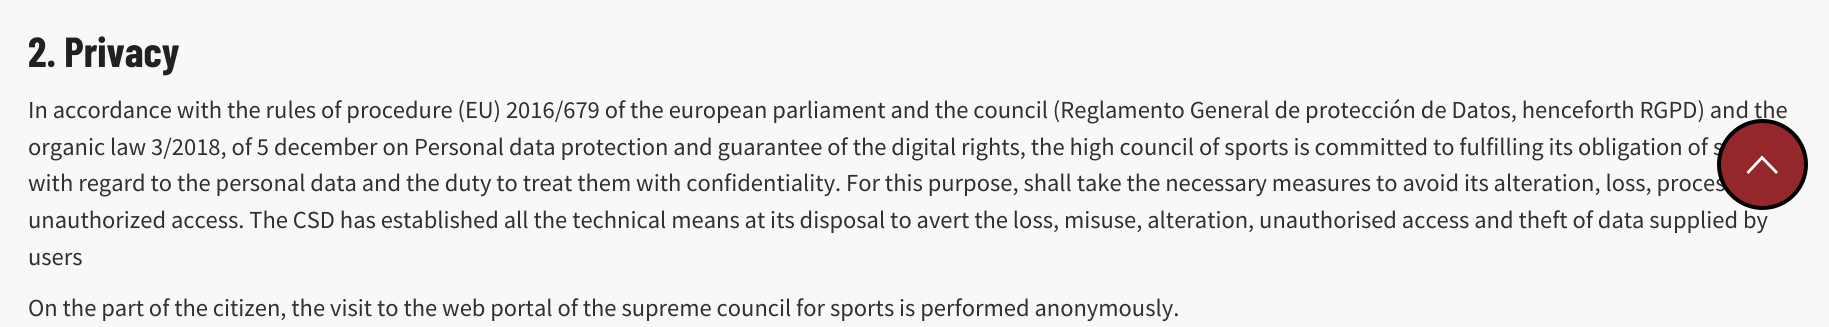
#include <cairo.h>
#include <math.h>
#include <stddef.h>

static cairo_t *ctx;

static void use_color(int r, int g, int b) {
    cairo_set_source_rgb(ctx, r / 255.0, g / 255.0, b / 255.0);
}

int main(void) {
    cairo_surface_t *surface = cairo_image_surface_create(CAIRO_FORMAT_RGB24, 1829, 327);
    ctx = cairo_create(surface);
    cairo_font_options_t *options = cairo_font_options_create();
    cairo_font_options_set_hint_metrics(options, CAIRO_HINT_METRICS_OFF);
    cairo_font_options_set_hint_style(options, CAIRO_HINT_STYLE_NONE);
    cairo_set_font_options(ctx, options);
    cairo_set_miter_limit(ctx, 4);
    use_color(248, 248, 246);
    cairo_paint(ctx);
    cairo_select_font_face(ctx, "Barlow Condensed", CAIRO_FONT_SLANT_NORMAL, CAIRO_FONT_WEIGHT_BOLD);
    cairo_set_font_size(ctx, 42);
    use_color(32, 33, 33);
    cairo_move_to(ctx, 28, 67);
    cairo_show_text(ctx, "2. Privacy");
    cairo_select_font_face(ctx, "Source Sans Pro", CAIRO_FONT_SLANT_NORMAL, CAIRO_FONT_WEIGHT_NORMAL);
    cairo_set_font_size(ctx, 24.5);
    use_color(48, 48, 48);
    cairo_move_to(ctx, 28, 118);
    cairo_show_text(ctx, "In accordance with the rules of procedure (EU) 2016/679 of the european parliament and the council (Reglamento General de protección de Datos, henceforth RGPD) and the");
    cairo_move_to(ctx, 28, 155);
    cairo_show_text(ctx, "organic law 3/2018, of 5 december on Personal data protection and guarantee of the digital rights, the high council of sports is committed to fulfilling its obligation of s");
    cairo_move_to(ctx, 28, 191);
    cairo_show_text(ctx, "with regard to the personal data and the duty to treat them with confidentiality. For this purpose, shall take the necessary measures to avoid its alteration, loss, proces");
    cairo_move_to(ctx, 28, 228);
    cairo_show_text(ctx, "unauthorized access. The CSD has established all the technical means at its disposal to avert the loss, misuse, alteration, unauthorised access and theft of data supplied by");
    cairo_move_to(ctx, 28, 265);
    cairo_show_text(ctx, "users");
    cairo_move_to(ctx, 28, 316);
    cairo_show_text(ctx, "On the part of the citizen, the visit to the web portal of the supreme council for sports is performed anonymously.");
    use_color(147, 39, 44);
    cairo_new_path(ctx);
    cairo_arc(ctx, 1762.5, 164.5, 43.5, 0, 2 * M_PI);
    cairo_fill_preserve(ctx);
    use_color(0, 0, 0);
    cairo_set_line_width(ctx, 4);
    cairo_stroke(ctx);
    use_color(255, 255, 255);
    cairo_new_path(ctx);
    cairo_move_to(ctx, 1762, 159.5);
    cairo_line_to(ctx, 1748.5, 174);
    cairo_line_to(ctx, 1746.5, 172);
    cairo_line_to(ctx, 1762, 155.5);
    cairo_line_to(ctx, 1778, 172);
    cairo_line_to(ctx, 1776, 174);
    cairo_close_path(ctx);
    cairo_fill(ctx);
    cairo_surface_write_to_png(surface, "result.png");
    cairo_font_options_destroy(options);
    cairo_destroy(ctx);
    cairo_surface_destroy(surface);
    return 0;
}
